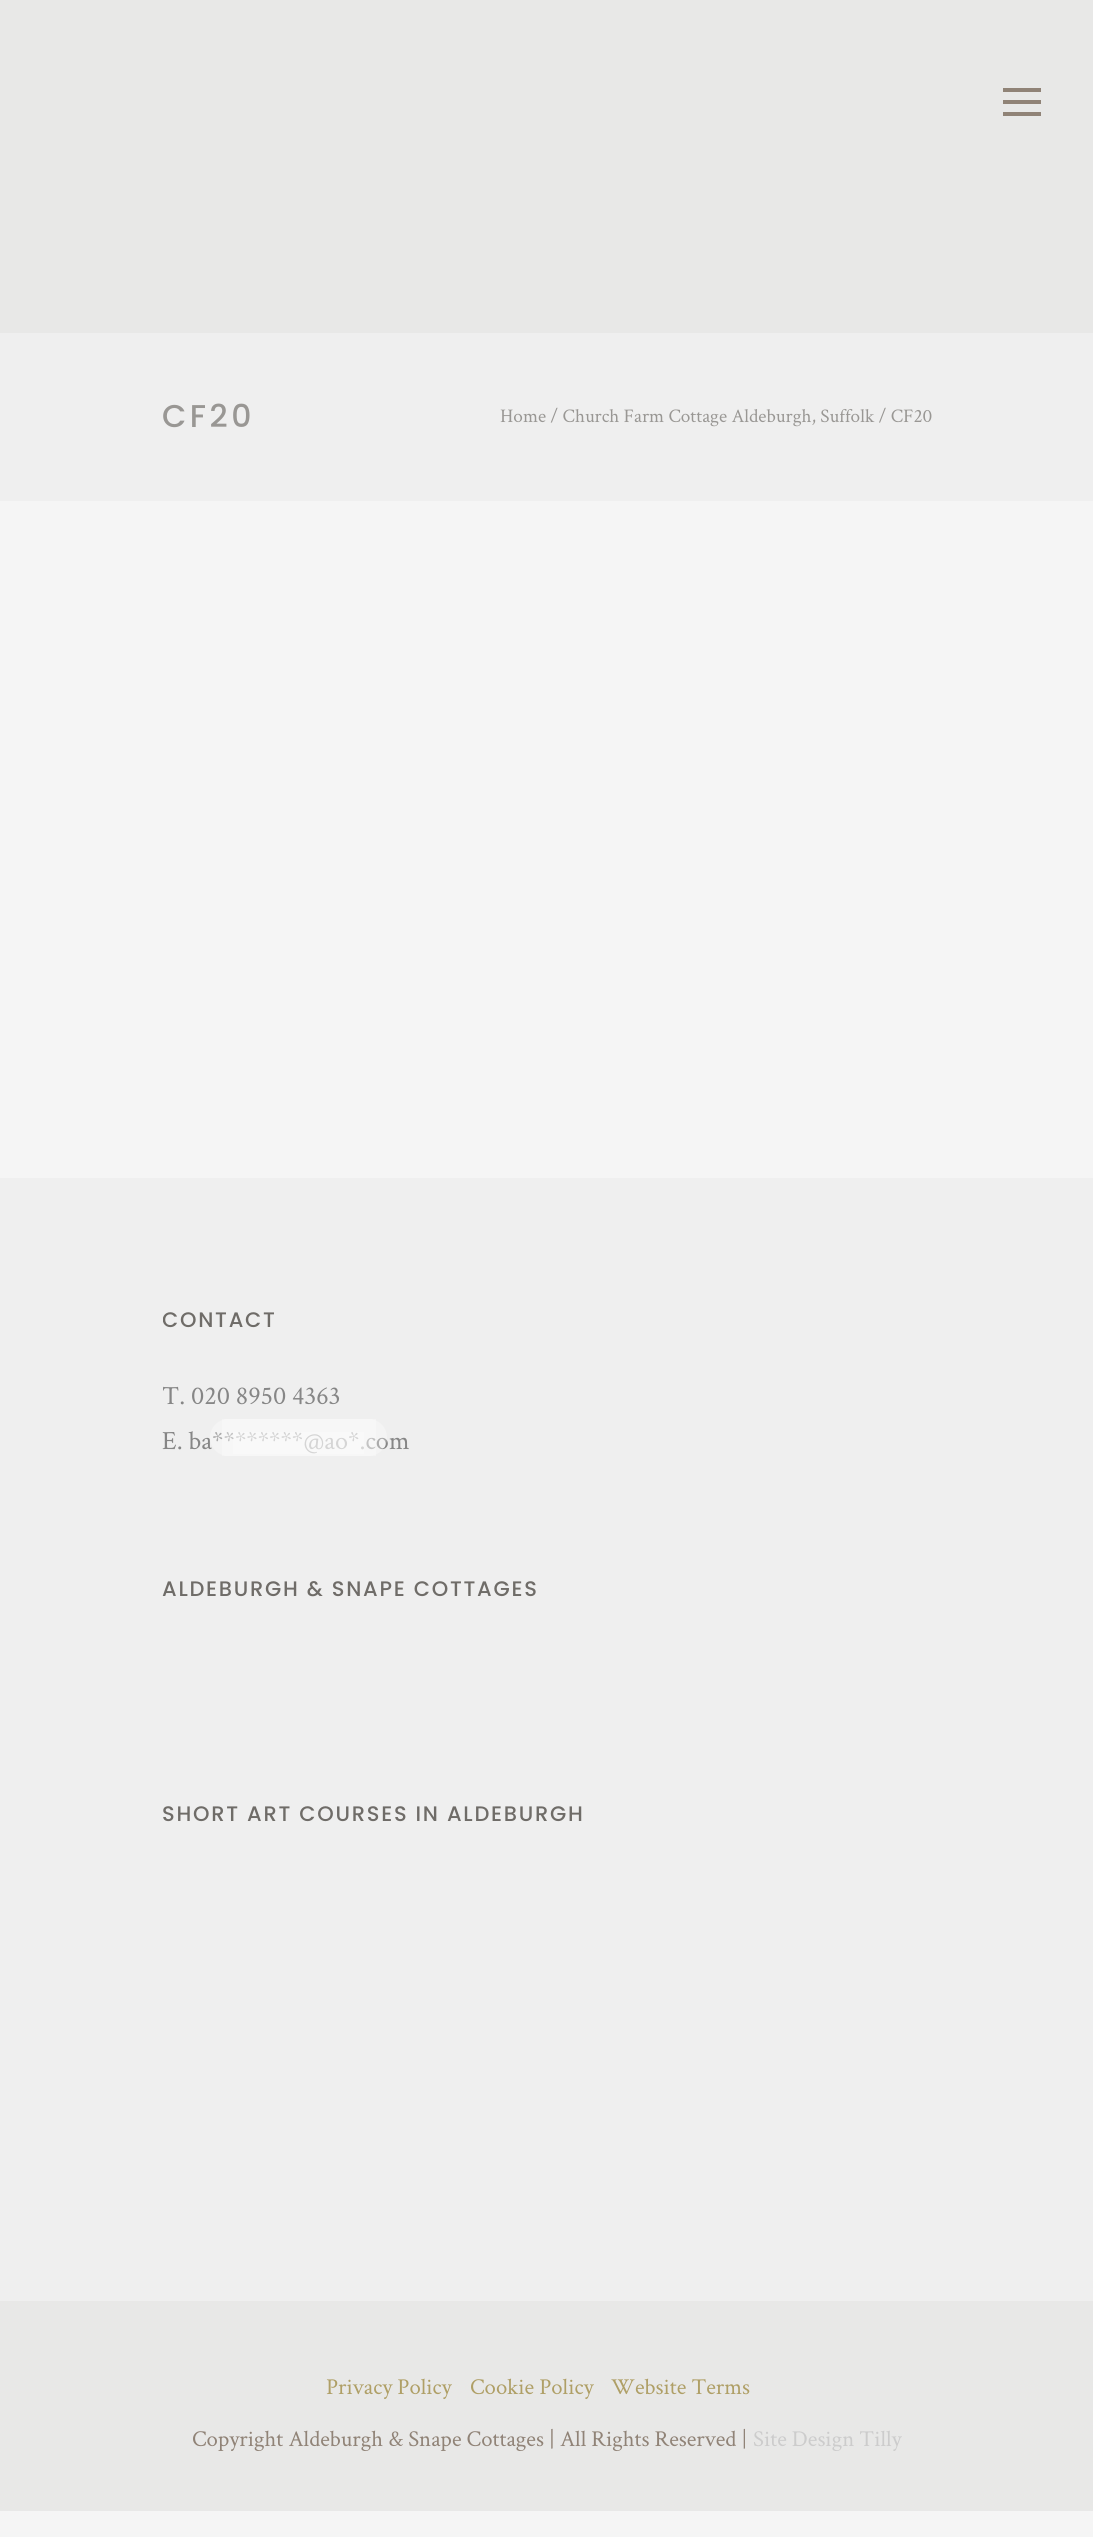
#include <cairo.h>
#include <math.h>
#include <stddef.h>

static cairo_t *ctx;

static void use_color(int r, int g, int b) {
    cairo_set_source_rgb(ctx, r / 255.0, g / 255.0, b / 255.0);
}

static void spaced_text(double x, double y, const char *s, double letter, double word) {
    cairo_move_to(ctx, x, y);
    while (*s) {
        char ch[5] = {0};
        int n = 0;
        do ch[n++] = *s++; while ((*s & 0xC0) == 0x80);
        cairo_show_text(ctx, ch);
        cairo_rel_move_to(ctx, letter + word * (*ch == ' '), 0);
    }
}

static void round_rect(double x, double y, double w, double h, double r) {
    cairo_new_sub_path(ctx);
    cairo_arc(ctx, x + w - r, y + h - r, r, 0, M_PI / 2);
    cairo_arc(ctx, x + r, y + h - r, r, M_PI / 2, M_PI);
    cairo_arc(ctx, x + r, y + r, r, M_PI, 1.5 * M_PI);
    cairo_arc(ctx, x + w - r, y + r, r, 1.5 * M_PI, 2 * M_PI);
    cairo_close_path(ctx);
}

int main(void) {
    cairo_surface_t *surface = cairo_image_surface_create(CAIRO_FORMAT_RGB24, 1093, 2537);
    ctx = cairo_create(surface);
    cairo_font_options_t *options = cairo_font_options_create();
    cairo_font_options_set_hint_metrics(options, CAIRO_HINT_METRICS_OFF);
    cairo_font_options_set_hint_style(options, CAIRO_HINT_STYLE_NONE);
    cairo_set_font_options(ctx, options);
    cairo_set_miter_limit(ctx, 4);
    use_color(245, 245, 245);
    cairo_paint(ctx);
    use_color(232, 232, 231);
    cairo_rectangle(ctx, 0, 0, 1093, 333);
    cairo_fill(ctx);
    use_color(144, 131, 119);
    cairo_rectangle(ctx, 1003, 100, 38, 4);
    cairo_fill(ctx);
    cairo_rectangle(ctx, 1003, 88, 38, 4);
    cairo_fill(ctx);
    cairo_rectangle(ctx, 1003, 112, 38, 4);
    cairo_fill(ctx);
    use_color(239, 239, 239);
    cairo_rectangle(ctx, 0, 333, 1093, 168);
    cairo_fill(ctx);
    cairo_select_font_face(ctx, "Poppins Medium", CAIRO_FONT_SLANT_NORMAL, CAIRO_FONT_WEIGHT_NORMAL);
    cairo_set_font_size(ctx, 31.5);
    use_color(153, 151, 148);
    spaced_text(162, 427, "CF20", 3.5, 0);
    cairo_select_font_face(ctx, "Crimson Text", CAIRO_FONT_SLANT_NORMAL, CAIRO_FONT_WEIGHT_NORMAL);
    cairo_set_font_size(ctx, 19.25);
    cairo_move_to(ctx, 500, 422);
    cairo_show_text(ctx, "Home / Church Farm Cottage Aldeburgh, Suffolk / CF20");
    use_color(239, 239, 239);
    cairo_rectangle(ctx, 0, 1178, 1093, 1123);
    cairo_fill(ctx);
    cairo_save(ctx);
    cairo_rectangle(ctx, 163, 1300, 770, 165);
    cairo_clip(ctx);
    cairo_select_font_face(ctx, "Poppins Medium", CAIRO_FONT_SLANT_NORMAL, CAIRO_FONT_WEIGHT_NORMAL);
    cairo_set_font_size(ctx, 21);
    use_color(111, 108, 104);
    spaced_text(162, 1327, "CONTACT", 1.75, 0);
    cairo_select_font_face(ctx, "Crimson Text", CAIRO_FONT_SLANT_NORMAL, CAIRO_FONT_WEIGHT_NORMAL);
    cairo_set_font_size(ctx, 26.25);
    use_color(134, 134, 134);
    cairo_move_to(ctx, 162, 1404);
    cairo_show_text(ctx, "T. 020 8950 4363");
    cairo_restore(ctx);
    cairo_set_font_size(ctx, 26.25);
    use_color(134, 134, 134);
    cairo_move_to(ctx, 162, 1449);
    cairo_show_text(ctx, "E. ba********@ao*.com");
    cairo_set_source_rgba(ctx, 1, 1, 1, 0.3);
    round_rect(210, 1419, 177, 37, 18.5);
    cairo_fill(ctx);
    cairo_rectangle(ctx, 222, 1419, 154, 37);
    cairo_fill(ctx);
    cairo_rectangle(ctx, 233, 1432, 131, 22);
    cairo_fill(ctx);
    cairo_select_font_face(ctx, "Poppins Medium", CAIRO_FONT_SLANT_NORMAL, CAIRO_FONT_WEIGHT_NORMAL);
    cairo_set_font_size(ctx, 21);
    use_color(111, 108, 104);
    spaced_text(162, 1596, "ALDEBURGH & SNAPE COTTAGES", 1.75, 0);
    spaced_text(162, 1821, "SHORT ART COURSES IN ALDEBURGH", 1.75, 0);
    use_color(232, 232, 231);
    cairo_rectangle(ctx, 0, 2301, 1093, 210);
    cairo_fill(ctx);
    cairo_select_font_face(ctx, "Crimson Text", CAIRO_FONT_SLANT_NORMAL, CAIRO_FONT_WEIGHT_NORMAL);
    cairo_set_font_size(ctx, 22.75);
    use_color(175, 159, 102);
    cairo_move_to(ctx, 326, 2394);
    cairo_show_text(ctx, "Privacy Policy");
    cairo_move_to(ctx, 470, 2394);
    cairo_show_text(ctx, "Cookie Policy");
    cairo_move_to(ctx, 611, 2394);
    cairo_show_text(ctx, "Website Terms");
    use_color(144, 131, 119);
    cairo_move_to(ctx, 192, 2446);
    cairo_show_text(ctx, "Copyright Aldeburgh & Snape Cottages | All Rights Reserved |");
    use_color(204, 204, 204);
    cairo_move_to(ctx, 753, 2446);
    cairo_show_text(ctx, "Site Design Tilly");
    cairo_surface_write_to_png(surface, "result.png");
    cairo_font_options_destroy(options);
    cairo_destroy(ctx);
    cairo_surface_destroy(surface);
    return 0;
}
